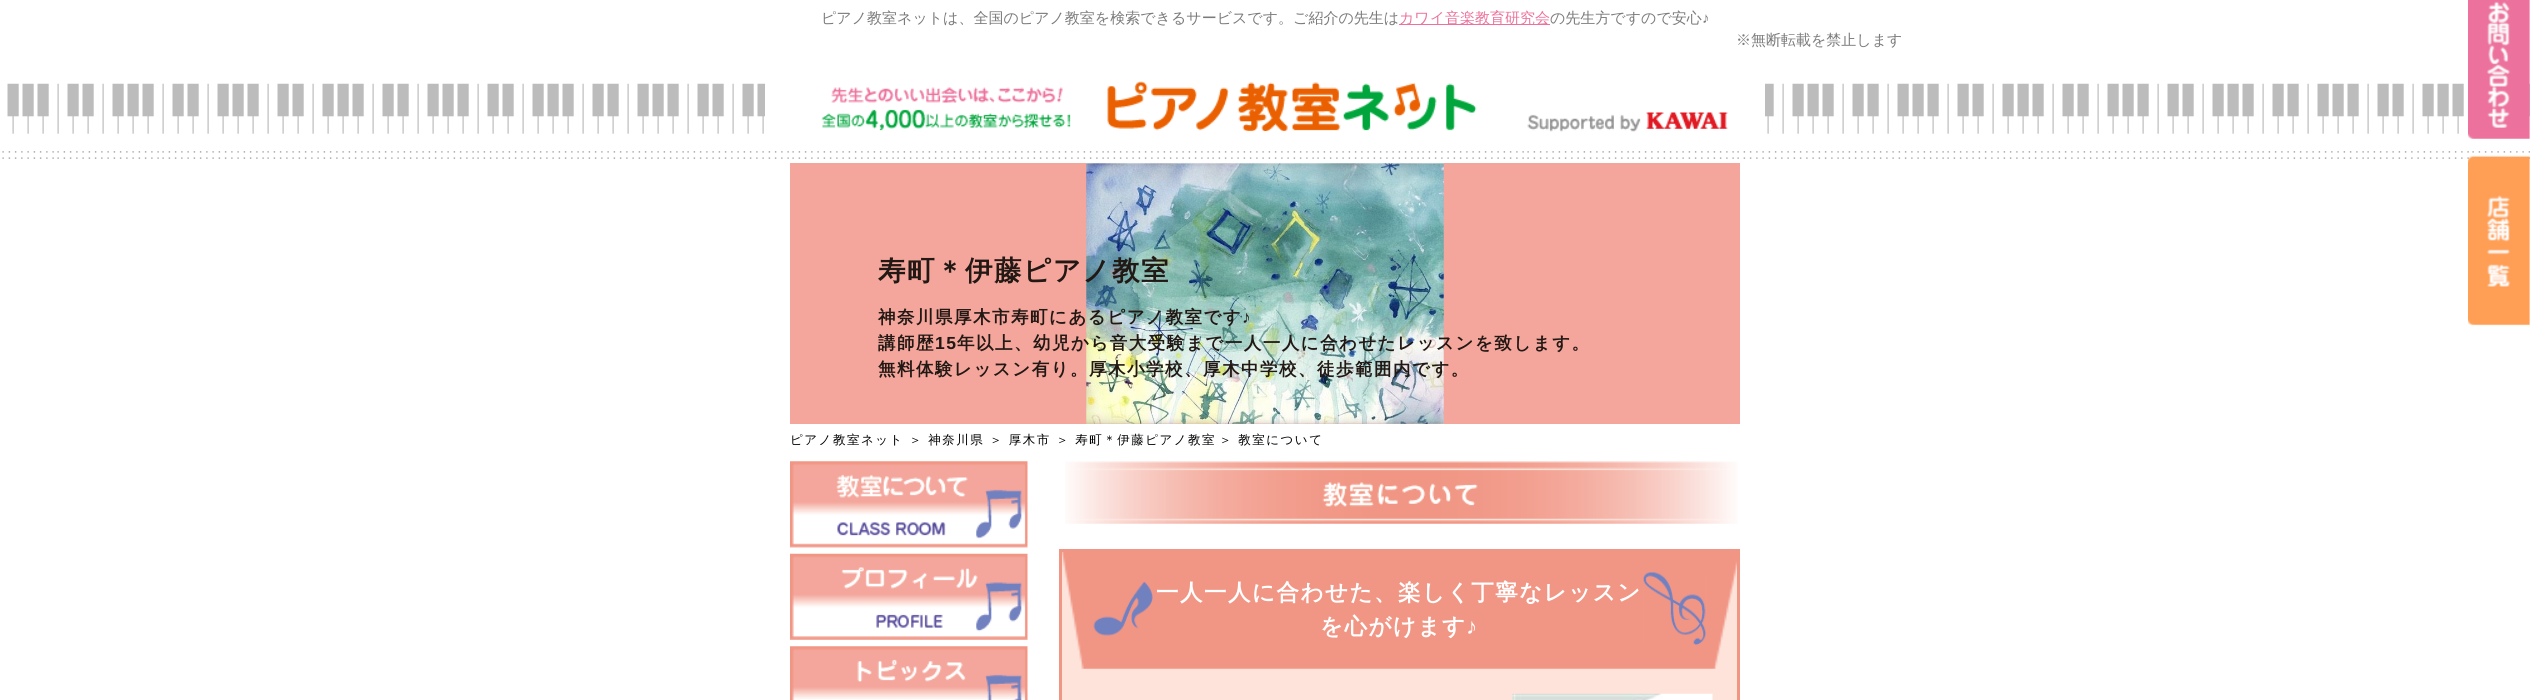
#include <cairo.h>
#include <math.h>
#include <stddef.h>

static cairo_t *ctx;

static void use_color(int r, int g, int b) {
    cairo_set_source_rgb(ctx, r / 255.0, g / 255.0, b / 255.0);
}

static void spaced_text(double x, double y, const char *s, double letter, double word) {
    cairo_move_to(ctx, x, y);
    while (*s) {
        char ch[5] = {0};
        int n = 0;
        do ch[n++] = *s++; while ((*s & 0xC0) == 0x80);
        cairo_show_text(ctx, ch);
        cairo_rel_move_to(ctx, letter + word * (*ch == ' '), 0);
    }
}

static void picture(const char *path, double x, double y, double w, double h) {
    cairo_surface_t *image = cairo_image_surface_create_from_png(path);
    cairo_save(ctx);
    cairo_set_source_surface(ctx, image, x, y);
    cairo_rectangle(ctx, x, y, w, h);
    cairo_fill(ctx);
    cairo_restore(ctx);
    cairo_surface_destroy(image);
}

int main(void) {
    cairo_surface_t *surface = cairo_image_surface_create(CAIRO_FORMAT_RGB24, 2530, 700);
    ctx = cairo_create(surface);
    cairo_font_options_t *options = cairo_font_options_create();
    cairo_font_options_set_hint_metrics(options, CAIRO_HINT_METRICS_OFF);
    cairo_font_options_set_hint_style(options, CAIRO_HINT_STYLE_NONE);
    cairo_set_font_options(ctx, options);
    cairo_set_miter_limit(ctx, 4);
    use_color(255, 255, 255);
    cairo_paint(ctx);
    picture("img1.png", 2, 83, 2528, 76);
    cairo_select_font_face(ctx, "WenQuanYi Zen Hei Medium", CAIRO_FONT_SLANT_NORMAL, CAIRO_FONT_WEIGHT_NORMAL);
    cairo_set_font_size(ctx, 15);
    use_color(123, 123, 123);
    cairo_move_to(ctx, 821, 23);
    cairo_show_text(ctx, "ピアノ教室ネットは、全国のピアノ教室を検索できるサービスです。ご紹介の先生は");
    use_color(236, 114, 157);
    cairo_rectangle(ctx, 1399, 24, 151, 1);
    cairo_fill(ctx);
    cairo_move_to(ctx, 1399, 23);
    cairo_show_text(ctx, "カワイ音楽教育研究会");
    use_color(123, 123, 123);
    cairo_move_to(ctx, 1550, 23);
    cairo_show_text(ctx, "の先生方ですので安心");
    cairo_select_font_face(ctx, "Liberation Sans", CAIRO_FONT_SLANT_NORMAL, CAIRO_FONT_WEIGHT_NORMAL);
    cairo_move_to(ctx, 1702, 23);
    cairo_show_text(ctx, "♪");
    cairo_select_font_face(ctx, "WenQuanYi Zen Hei Medium", CAIRO_FONT_SLANT_NORMAL, CAIRO_FONT_WEIGHT_NORMAL);
    cairo_move_to(ctx, 1736, 45);
    cairo_show_text(ctx, "※無断転載を禁止します");
    use_color(255, 255, 255);
    cairo_rectangle(ctx, 765, 83, 1000, 51);
    cairo_fill(ctx);
    picture("img2.png", 821, 81, 656, 51);
    picture("img3.png", 1527, 112, 201, 20);
    picture("img4.png", 2468, 0, 62, 139);
    picture("img5.png", 2468, 155, 62, 171);
    use_color(244, 166, 156);
    cairo_rectangle(ctx, 790, 163, 950, 261);
    cairo_fill(ctx);
    picture("img6.png", 1086, 162, 358, 262);
    cairo_select_font_face(ctx, "WenQuanYi Zen Hei", CAIRO_FONT_SLANT_NORMAL, CAIRO_FONT_WEIGHT_BOLD);
    cairo_set_font_size(ctx, 27.5);
    use_color(34, 24, 20);
    spaced_text(878, 280, "寿町＊伊藤ピアノ教室", 1.5, 0);
    cairo_set_font_size(ctx, 17.5);
    spaced_text(878, 323, "神奈川県厚木市寿町にあるピアノ教室です", 1.5, 0);
    cairo_select_font_face(ctx, "Liberation Sans", CAIRO_FONT_SLANT_NORMAL, CAIRO_FONT_WEIGHT_BOLD);
    spaced_text(1242, 323, "♪", 1.5, 0);
    cairo_select_font_face(ctx, "WenQuanYi Zen Hei", CAIRO_FONT_SLANT_NORMAL, CAIRO_FONT_WEIGHT_BOLD);
    spaced_text(878, 349, "講師歴", 1.5, 0);
    cairo_select_font_face(ctx, "Liberation Sans", CAIRO_FONT_SLANT_NORMAL, CAIRO_FONT_WEIGHT_BOLD);
    spaced_text(935, 349, "15", 1.5, 0);
    cairo_select_font_face(ctx, "WenQuanYi Zen Hei", CAIRO_FONT_SLANT_NORMAL, CAIRO_FONT_WEIGHT_BOLD);
    spaced_text(957, 349, "年以上、幼児から音大受験まで一人一人に合わせたレッスンを致します。", 1.5, 0);
    spaced_text(878, 375, "無料体験レッスン有り。厚木小学校、厚木中学校、徒歩範囲内です。", 1.5, 0);
    cairo_select_font_face(ctx, "WenQuanYi Zen Hei Medium", CAIRO_FONT_SLANT_NORMAL, CAIRO_FONT_WEIGHT_NORMAL);
    cairo_set_font_size(ctx, 12.5);
    use_color(0, 0, 0);
    spaced_text(790, 444, "ピアノ教室ネット ＞ 神奈川県 ＞ 厚木市 ＞ 寿町＊伊藤ピアノ教室", 1.5, 0);
    spaced_text(1219, 444, "＞ 教室について", 1.5, 0);
    picture("img7.png", 790, 461, 238, 87);
    picture("img8.png", 790, 553, 238, 87);
    picture("img9.png", 790, 646, 238, 54);
    picture("img10.png", 1065, 461, 673, 63);
    use_color(253, 227, 218);
    cairo_rectangle(ctx, 1060.5, 550.5, 678, 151);
    cairo_fill_preserve(ctx);
    use_color(241, 150, 133);
    cairo_set_line_width(ctx, 3);
    cairo_stroke(ctx);
    picture("img11.png", 1062, 552, 675, 117);
    picture("img12.png", 1093, 581, 60, 55);
    cairo_select_font_face(ctx, "WenQuanYi Zen Hei", CAIRO_FONT_SLANT_NORMAL, CAIRO_FONT_WEIGHT_BOLD);
    cairo_set_font_size(ctx, 22.5);
    use_color(255, 255, 255);
    spaced_text(1156, 600, "一人一人に合わせた、楽しく丁寧なレッスン", 1.5, 0);
    picture("img13.png", 1643, 572, 64, 73);
    spaced_text(1320, 634, "を心がけます", 1.5, 0);
    cairo_select_font_face(ctx, "Liberation Sans", CAIRO_FONT_SLANT_NORMAL, CAIRO_FONT_WEIGHT_BOLD);
    spaced_text(1466, 634, "♪", 1.5, 0);
    picture("img14.png", 1512, 693, 201, 7);
    cairo_surface_write_to_png(surface, "result.png");
    cairo_font_options_destroy(options);
    cairo_destroy(ctx);
    cairo_surface_destroy(surface);
    return 0;
}
